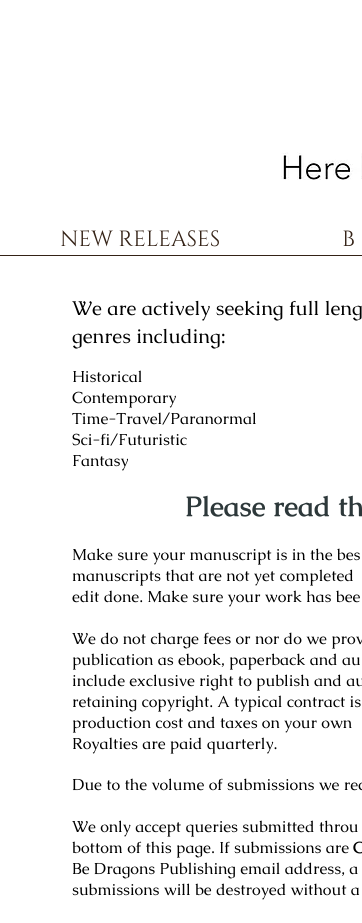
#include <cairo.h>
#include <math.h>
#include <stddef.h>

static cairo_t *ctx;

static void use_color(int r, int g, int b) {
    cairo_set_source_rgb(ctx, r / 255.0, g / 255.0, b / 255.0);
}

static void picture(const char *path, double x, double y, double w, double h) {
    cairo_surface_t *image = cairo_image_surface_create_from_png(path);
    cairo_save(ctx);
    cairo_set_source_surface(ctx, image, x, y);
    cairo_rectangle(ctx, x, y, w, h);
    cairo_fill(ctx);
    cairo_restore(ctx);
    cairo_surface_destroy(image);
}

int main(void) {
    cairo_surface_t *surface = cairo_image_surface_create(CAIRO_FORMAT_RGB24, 362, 923);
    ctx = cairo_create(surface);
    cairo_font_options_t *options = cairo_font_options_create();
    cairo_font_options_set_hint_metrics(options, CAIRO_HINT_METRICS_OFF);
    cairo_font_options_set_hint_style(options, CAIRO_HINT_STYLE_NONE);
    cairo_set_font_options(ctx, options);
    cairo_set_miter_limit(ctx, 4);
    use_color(255, 255, 255);
    cairo_paint(ctx);
    picture("img1.png", 281, 152, 81, 28);
    cairo_select_font_face(ctx, "Cinzel", CAIRO_FONT_SLANT_NORMAL, CAIRO_FONT_WEIGHT_NORMAL);
    cairo_set_font_size(ctx, 22);
    use_color(52, 34, 22);
    cairo_move_to(ctx, 60, 246);
    cairo_show_text(ctx, "NEW RELEASES");
    cairo_move_to(ctx, 342, 246);
    cairo_show_text(ctx, "B");
    cairo_rectangle(ctx, 0, 255, 362, 1);
    cairo_fill(ctx);
    cairo_select_font_face(ctx, "Caudex", CAIRO_FONT_SLANT_NORMAL, CAIRO_FONT_WEIGHT_NORMAL);
    cairo_set_font_size(ctx, 20);
    use_color(0, 0, 0);
    cairo_move_to(ctx, 72, 315);
    cairo_show_text(ctx, "We are actively seeking full leng");
    cairo_move_to(ctx, 72, 343);
    cairo_show_text(ctx, "genres including:");
    cairo_set_font_size(ctx, 16);
    cairo_move_to(ctx, 72, 382);
    cairo_show_text(ctx, "Historical");
    cairo_move_to(ctx, 72, 403);
    cairo_show_text(ctx, "Contemporary");
    cairo_move_to(ctx, 72, 424);
    cairo_show_text(ctx, "Time-Travel/Paranormal");
    cairo_move_to(ctx, 72, 445);
    cairo_show_text(ctx, "Sci-fi/Futuristic");
    cairo_move_to(ctx, 72, 466);
    cairo_show_text(ctx, "Fantasy");
    cairo_select_font_face(ctx, "Caudex", CAIRO_FONT_SLANT_NORMAL, CAIRO_FONT_WEIGHT_BOLD);
    cairo_set_font_size(ctx, 28);
    use_color(45, 56, 58);
    cairo_move_to(ctx, 185, 516);
    cairo_show_text(ctx, "Please read th");
    cairo_select_font_face(ctx, "Caudex", CAIRO_FONT_SLANT_NORMAL, CAIRO_FONT_WEIGHT_NORMAL);
    cairo_set_font_size(ctx, 16);
    use_color(0, 0, 0);
    cairo_move_to(ctx, 72, 560);
    cairo_show_text(ctx, "Make sure your manuscript is in the bes");
    cairo_move_to(ctx, 72, 581);
    cairo_show_text(ctx, "manuscripts that are not yet completed");
    cairo_move_to(ctx, 72, 602);
    cairo_show_text(ctx, "edit done. Make sure your work has bee");
    cairo_move_to(ctx, 72, 644);
    cairo_show_text(ctx, "We do not charge fees or nor do we prov");
    cairo_move_to(ctx, 72, 665);
    cairo_show_text(ctx, "publication as ebook, paperback and au");
    cairo_move_to(ctx, 72, 686);
    cairo_show_text(ctx, "include exclusive right to publish and au");
    cairo_move_to(ctx, 72, 707);
    cairo_show_text(ctx, "retaining copyright. A typical contract is");
    cairo_move_to(ctx, 72, 728);
    cairo_show_text(ctx, "production cost and taxes on your own");
    cairo_move_to(ctx, 72, 749);
    cairo_show_text(ctx, "Royalties are paid quarterly.");
    cairo_move_to(ctx, 72, 790);
    cairo_show_text(ctx, "Due to the volume of submissions we rec");
    cairo_move_to(ctx, 72, 832);
    cairo_show_text(ctx, "We only accept queries submitted throu");
    cairo_move_to(ctx, 72, 853);
    cairo_show_text(ctx, "bottom of this page. If submissions are");
    cairo_select_font_face(ctx, "Caudex", CAIRO_FONT_SLANT_NORMAL, CAIRO_FONT_WEIGHT_BOLD);
    cairo_move_to(ctx, 353, 853);
    cairo_show_text(ctx, "C");
    cairo_select_font_face(ctx, "Caudex", CAIRO_FONT_SLANT_NORMAL, CAIRO_FONT_WEIGHT_NORMAL);
    cairo_move_to(ctx, 72, 874);
    cairo_show_text(ctx, "Be Dragons Publishing email address, a");
    cairo_move_to(ctx, 72, 895);
    cairo_show_text(ctx, "submissions will be destroyed without a");
    cairo_surface_write_to_png(surface, "result.png");
    cairo_font_options_destroy(options);
    cairo_destroy(ctx);
    cairo_surface_destroy(surface);
    return 0;
}
